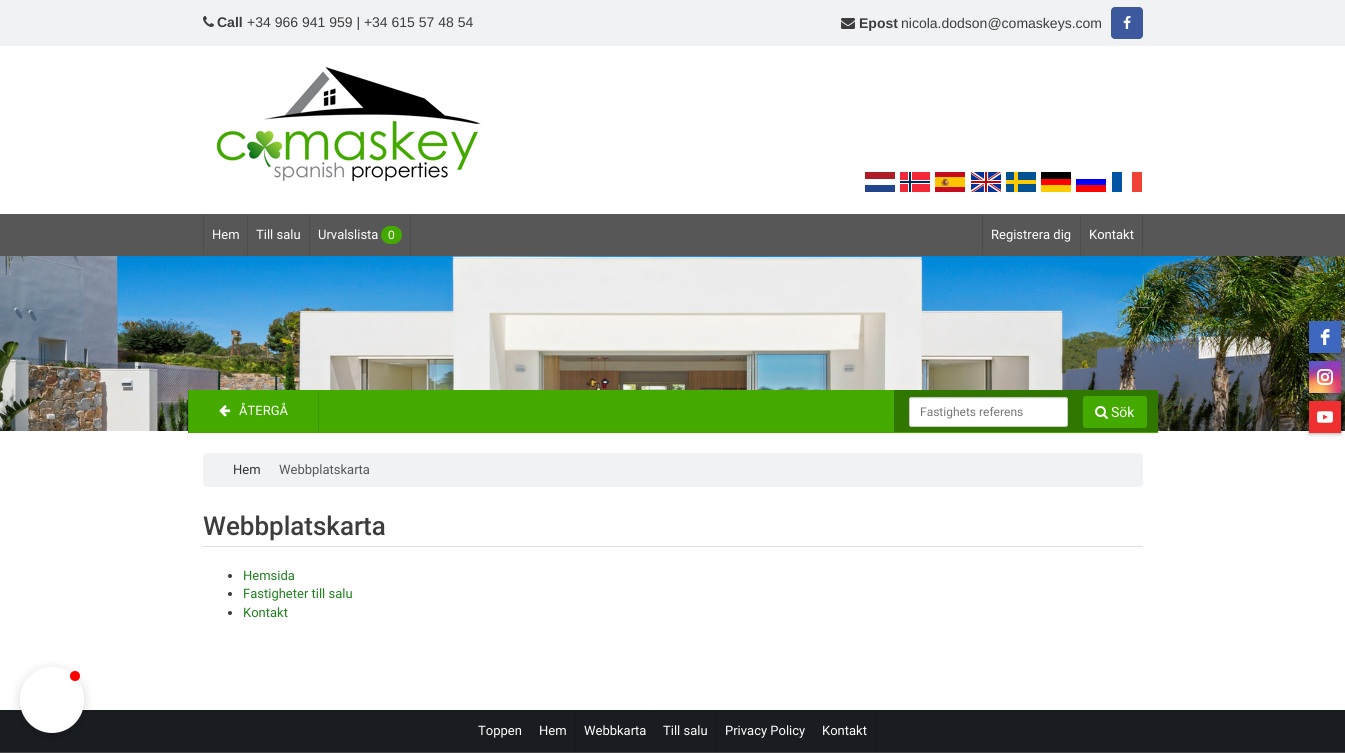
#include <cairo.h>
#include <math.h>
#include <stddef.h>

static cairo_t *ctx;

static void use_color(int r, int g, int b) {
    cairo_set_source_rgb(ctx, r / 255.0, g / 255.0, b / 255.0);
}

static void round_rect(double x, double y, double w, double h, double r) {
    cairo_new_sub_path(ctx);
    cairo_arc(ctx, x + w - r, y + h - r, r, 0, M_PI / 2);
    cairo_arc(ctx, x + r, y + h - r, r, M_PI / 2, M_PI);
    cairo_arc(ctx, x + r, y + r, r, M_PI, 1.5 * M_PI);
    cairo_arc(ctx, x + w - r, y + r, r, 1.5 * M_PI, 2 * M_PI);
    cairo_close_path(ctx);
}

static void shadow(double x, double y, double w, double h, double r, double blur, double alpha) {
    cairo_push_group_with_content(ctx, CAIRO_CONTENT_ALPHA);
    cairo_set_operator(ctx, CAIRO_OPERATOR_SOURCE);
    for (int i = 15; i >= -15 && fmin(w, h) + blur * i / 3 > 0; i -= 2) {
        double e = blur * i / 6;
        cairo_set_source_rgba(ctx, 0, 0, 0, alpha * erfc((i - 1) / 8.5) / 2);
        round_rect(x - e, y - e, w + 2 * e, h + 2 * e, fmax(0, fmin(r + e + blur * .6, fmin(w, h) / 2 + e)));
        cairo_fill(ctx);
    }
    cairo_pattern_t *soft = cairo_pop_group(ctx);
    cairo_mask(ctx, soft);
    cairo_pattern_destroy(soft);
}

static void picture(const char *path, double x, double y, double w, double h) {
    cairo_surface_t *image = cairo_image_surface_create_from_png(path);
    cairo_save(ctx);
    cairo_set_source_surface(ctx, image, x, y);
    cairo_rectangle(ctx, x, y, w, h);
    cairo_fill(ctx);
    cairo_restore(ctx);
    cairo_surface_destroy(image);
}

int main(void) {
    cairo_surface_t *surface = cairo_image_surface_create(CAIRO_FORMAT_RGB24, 1345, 753);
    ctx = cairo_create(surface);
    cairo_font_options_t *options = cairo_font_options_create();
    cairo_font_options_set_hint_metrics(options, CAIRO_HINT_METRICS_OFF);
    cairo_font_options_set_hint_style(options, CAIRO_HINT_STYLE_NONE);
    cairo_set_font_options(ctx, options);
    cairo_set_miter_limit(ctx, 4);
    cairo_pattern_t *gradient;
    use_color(255, 255, 255);
    cairo_paint(ctx);
    use_color(241, 242, 244);
    cairo_rectangle(ctx, 0, 0, 1345, 46);
    cairo_fill(ctx);
    picture("img1.png", 203, 16, 11, 11);
    cairo_select_font_face(ctx, "Liberation Sans", CAIRO_FONT_SLANT_NORMAL, CAIRO_FONT_WEIGHT_BOLD);
    cairo_set_font_size(ctx, 14);
    use_color(61, 61, 61);
    cairo_move_to(ctx, 217, 27);
    cairo_show_text(ctx, "Call");
    cairo_select_font_face(ctx, "Liberation Sans", CAIRO_FONT_SLANT_NORMAL, CAIRO_FONT_WEIGHT_NORMAL);
    cairo_move_to(ctx, 247, 27);
    cairo_show_text(ctx, "+34 966 941 959 | +34 615 57 48 54");
    picture("img2.png", 841, 18, 14, 11);
    cairo_select_font_face(ctx, "Liberation Sans", CAIRO_FONT_SLANT_NORMAL, CAIRO_FONT_WEIGHT_BOLD);
    cairo_move_to(ctx, 859, 28);
    cairo_show_text(ctx, "Epost");
    cairo_select_font_face(ctx, "Liberation Sans", CAIRO_FONT_SLANT_NORMAL, CAIRO_FONT_WEIGHT_NORMAL);
    cairo_move_to(ctx, 901, 28);
    cairo_show_text(ctx, "nicola.dodson@comaskeys.com");
    use_color(60, 89, 157);
    round_rect(1111, 7, 32, 32, 4);
    cairo_fill(ctx);
    picture("img3.png", 1123, 16, 8, 13);
    picture("img4.png", 216, 66, 265, 116);
    picture("img5.png", 865, 172, 30, 20);
    picture("img6.png", 900, 172, 30, 20);
    picture("img7.png", 935, 172, 30, 20);
    picture("img8.png", 971, 172, 30, 20);
    picture("img9.png", 1006, 172, 30, 20);
    picture("img10.png", 1041, 172, 30, 20);
    picture("img11.png", 1076, 179, 30, 13);
    picture("img12.png", 1112, 172, 30, 20);
    use_color(87, 87, 87);
    cairo_rectangle(ctx, 0, 214, 1345, 42);
    cairo_fill(ctx);
    use_color(78, 78, 78);
    cairo_rectangle(ctx, 247, 215, 1, 40);
    cairo_fill(ctx);
    cairo_rectangle(ctx, 203, 215, 1, 40);
    cairo_fill(ctx);
    cairo_select_font_face(ctx, "Roboto", CAIRO_FONT_SLANT_NORMAL, CAIRO_FONT_WEIGHT_NORMAL);
    cairo_set_font_size(ctx, 13);
    use_color(255, 255, 255);
    cairo_move_to(ctx, 212, 239);
    cairo_show_text(ctx, "Hem");
    use_color(78, 78, 78);
    cairo_rectangle(ctx, 309, 215, 1, 40);
    cairo_fill(ctx);
    use_color(255, 255, 255);
    cairo_move_to(ctx, 256, 239);
    cairo_show_text(ctx, "Till salu");
    use_color(78, 78, 78);
    cairo_rectangle(ctx, 410, 215, 1, 40);
    cairo_fill(ctx);
    use_color(255, 255, 255);
    cairo_move_to(ctx, 318, 239);
    cairo_show_text(ctx, "Urvalslista");
    use_color(68, 170, 0);
    round_rect(381, 226, 21, 18, 9);
    cairo_fill(ctx);
    cairo_select_font_face(ctx, "Liberation Sans", CAIRO_FONT_SLANT_NORMAL, CAIRO_FONT_WEIGHT_NORMAL);
    cairo_set_font_size(ctx, 12);
    use_color(255, 255, 255);
    cairo_move_to(ctx, 388, 239);
    cairo_show_text(ctx, "0");
    use_color(78, 78, 78);
    cairo_rectangle(ctx, 1080, 215, 1, 40);
    cairo_fill(ctx);
    cairo_rectangle(ctx, 982, 215, 1, 40);
    cairo_fill(ctx);
    cairo_select_font_face(ctx, "Roboto", CAIRO_FONT_SLANT_NORMAL, CAIRO_FONT_WEIGHT_NORMAL);
    cairo_set_font_size(ctx, 13);
    use_color(255, 255, 255);
    cairo_move_to(ctx, 991, 239);
    cairo_show_text(ctx, "Registrera dig");
    use_color(78, 78, 78);
    cairo_rectangle(ctx, 1142, 215, 1, 40);
    cairo_fill(ctx);
    use_color(255, 255, 255);
    cairo_move_to(ctx, 1089, 239);
    cairo_show_text(ctx, "Kontakt");
    picture("img13.png", 0, 256, 1345, 175);
    use_color(68, 170, 0);
    cairo_rectangle(ctx, 189, 390, 969, 43);
    cairo_fill(ctx);
    use_color(61, 153, 0);
    cairo_rectangle(ctx, 318, 390, 1, 43);
    cairo_fill(ctx);
    cairo_rectangle(ctx, 188, 390, 1, 43);
    cairo_fill(ctx);
    picture("img14.png", 219, 405, 12, 12);
    use_color(255, 255, 255);
    cairo_move_to(ctx, 239, 415);
    cairo_show_text(ctx, "ÅTERGÅ");
    use_color(48, 119, 0);
    cairo_rectangle(ctx, 894, 390, 264, 42);
    cairo_fill(ctx);
    use_color(255, 255, 255);
    round_rect(909, 397, 159, 30, 3);
    cairo_fill(ctx);
    use_color(236, 236, 236);
    cairo_new_path(ctx);
    cairo_move_to(ctx, 912, 399);
    cairo_line_to(ctx, 1065, 399);
    cairo_curve_to(ctx, 1066, 399, 1067, 400, 1067, 401);
    cairo_curve_to(ctx, 1067, 400, 1067, 398, 1065, 398);
    cairo_line_to(ctx, 912, 398);
    cairo_curve_to(ctx, 910, 398, 910, 400, 910, 401);
    cairo_curve_to(ctx, 910, 400, 911, 399, 912, 399);
    cairo_close_path(ctx);
    cairo_fill(ctx);
    round_rect(909.5, 397.5, 158, 29, 2.5);
    use_color(204, 204, 204);
    cairo_set_line_width(ctx, 1);
    cairo_stroke(ctx);
    cairo_set_font_size(ctx, 12);
    use_color(119, 119, 119);
    cairo_move_to(ctx, 920, 416);
    cairo_show_text(ctx, "Fastighets referens");
    use_color(68, 170, 0);
    round_rect(1082.5, 395.5, 65, 33, 3.5);
    cairo_fill_preserve(ctx);
    use_color(48, 119, 0);
    cairo_stroke(ctx);
    picture("img15.png", 1095, 406, 13, 13);
    cairo_set_font_size(ctx, 14);
    use_color(255, 255, 255);
    cairo_move_to(ctx, 1111, 417);
    cairo_show_text(ctx, "Sök");
    use_color(0, 0, 0);
    shadow(1309, 322, 32, 32, 0, 2, 0.28);
    shadow(1309, 321, 32, 32, 0, 1, 0.14);
    use_color(62, 104, 192);
    cairo_rectangle(ctx, 1309, 321, 32, 32);
    cairo_fill(ctx);
    picture("img16.png", 1320, 329, 10, 16);
    use_color(0, 0, 0);
    shadow(1309, 362, 32, 32, 0, 2, 0.28);
    shadow(1309, 361, 32, 32, 0, 1, 0.14);
    gradient = cairo_pattern_create_linear(1325, 361, 1325, 393);
    cairo_pattern_add_color_stop_rgba(gradient, 0, 0.396, 0.349, 0.792, 1);
    cairo_pattern_add_color_stop_rgba(gradient, 0.3, 0.737, 0.192, 0.561, 1);
    cairo_pattern_add_color_stop_rgba(gradient, 0.5, 0.89, 0.247, 0.373, 1);
    cairo_pattern_add_color_stop_rgba(gradient, 0.7, 0.969, 0.463, 0.22, 1);
    cairo_pattern_add_color_stop_rgba(gradient, 1, 0.996, 0.776, 0.427, 1);
    cairo_set_source(ctx, gradient);
    cairo_pattern_destroy(gradient);
    cairo_rectangle(ctx, 1309, 361, 32, 32);
    cairo_fill(ctx);
    gradient = cairo_pattern_create_radial(1341, 393, 0, 1341, 393, 45);
    cairo_pattern_add_color_stop_rgba(gradient, 0, 0.851, 0.192, 0.478, 1);
    cairo_pattern_add_color_stop_rgba(gradient, 1, 0.851, 0.192, 0.478, 0);
    cairo_set_source(ctx, gradient);
    cairo_pattern_destroy(gradient);
    cairo_rectangle(ctx, 1309, 361, 32, 32);
    cairo_fill(ctx);
    gradient = cairo_pattern_create_radial(0, 0, 0, 0, 0, 1);
    cairo_pattern_set_matrix(gradient, &(cairo_matrix_t){1.0 / 27, 0, 0, 1.0 / 54, -1.0 * 1328 / 27, -1.0 * 355 / 54});
    cairo_pattern_add_color_stop_rgba(gradient, 0, 0.537, 0.239, 0.761, 1);
    cairo_pattern_add_color_stop_rgba(gradient, 0.5, 0.537, 0.239, 0.761, 0);
    cairo_set_source(ctx, gradient);
    cairo_pattern_destroy(gradient);
    cairo_rectangle(ctx, 1317, 361, 23, 20);
    cairo_fill(ctx);
    gradient = cairo_pattern_create_radial(1341, 361, 0, 1341, 361, 45);
    cairo_pattern_add_color_stop_rgba(gradient, 0, 0.537, 0.239, 0.761, 1);
    cairo_pattern_add_color_stop_rgba(gradient, 0.5, 0.537, 0.239, 0.761, 0);
    cairo_set_source(ctx, gradient);
    cairo_pattern_destroy(gradient);
    cairo_rectangle(ctx, 1321, 361, 20, 22);
    cairo_fill(ctx);
    gradient = cairo_pattern_create_radial(0, 0, 0, 0, 0, 1);
    cairo_pattern_set_matrix(gradient, &(cairo_matrix_t){1.0 / 36, 0, 0, 1.0 / 68, -1.0 * 1315 / 36, -1.0 * 345 / 68});
    cairo_pattern_add_color_stop_rgba(gradient, 0, 0.322, 0.345, 0.812, 1);
    cairo_pattern_add_color_stop_rgba(gradient, 0.5, 0.322, 0.345, 0.812, 0);
    cairo_set_source(ctx, gradient);
    cairo_pattern_destroy(gradient);
    cairo_rectangle(ctx, 1309, 361, 21, 17);
    cairo_fill(ctx);
    gradient = cairo_pattern_create_radial(0, 0, 0, 0, 0, 1);
    cairo_pattern_set_matrix(gradient, &(cairo_matrix_t){1.0 / 45, 0, 0, 1.0 / 57, -1.0 * 1309 / 45, -1.0 * 353 / 57});
    cairo_pattern_add_color_stop_rgba(gradient, 0, 0.322, 0.345, 0.812, 1);
    cairo_pattern_add_color_stop_rgba(gradient, 0.5, 0.322, 0.345, 0.812, 0);
    cairo_set_source(ctx, gradient);
    cairo_pattern_destroy(gradient);
    cairo_rectangle(ctx, 1309, 361, 21, 20);
    cairo_fill(ctx);
    gradient = cairo_pattern_create_radial(1309, 406, 0, 1309, 406, 55);
    cairo_pattern_add_color_stop_rgba(gradient, 0, 0.996, 0.773, 0.392, 1);
    cairo_pattern_add_color_stop_rgba(gradient, 0.5, 0.996, 0.773, 0.392, 0);
    cairo_set_source(ctx, gradient);
    cairo_pattern_destroy(gradient);
    cairo_rectangle(ctx, 1309, 379, 23, 14);
    cairo_fill(ctx);
    gradient = cairo_pattern_create_radial(1320, 390, 0, 1320, 390, 36);
    cairo_pattern_add_color_stop_rgba(gradient, 0, 0.996, 0.773, 0.392, 1);
    cairo_pattern_add_color_stop_rgba(gradient, 0.5, 0.996, 0.773, 0.392, 0);
    cairo_set_source(ctx, gradient);
    cairo_pattern_destroy(gradient);
    cairo_rectangle(ctx, 1309, 372, 29, 21);
    cairo_fill(ctx);
    picture("img17.png", 1317, 369, 16, 16);
    use_color(0, 0, 0);
    shadow(1309, 402, 32, 32, 0, 2, 0.28);
    shadow(1309, 401, 32, 32, 0, 1, 0.14);
    use_color(238, 49, 48);
    cairo_rectangle(ctx, 1309, 401, 32, 32);
    cairo_fill(ctx);
    picture("img18.png", 1317, 411, 16, 12);
    use_color(241, 242, 244);
    round_rect(203, 453, 940, 34, 4);
    cairo_fill(ctx);
    cairo_set_font_size(ctx, 13);
    use_color(51, 51, 51);
    cairo_move_to(ctx, 233, 474);
    cairo_show_text(ctx, "Hem");
    use_color(87, 87, 87);
    cairo_move_to(ctx, 279, 474);
    cairo_show_text(ctx, "Webbplatskarta");
    use_color(221, 221, 221);
    cairo_rectangle(ctx, 203, 546, 940, 1);
    cairo_fill(ctx);
    cairo_select_font_face(ctx, "Roboto Medium", CAIRO_FONT_SLANT_NORMAL, CAIRO_FONT_WEIGHT_NORMAL);
    cairo_set_font_size(ctx, 26);
    use_color(61, 61, 61);
    cairo_move_to(ctx, 203, 535);
    cairo_show_text(ctx, "Webbplatskarta");
    cairo_new_path(ctx);
    cairo_arc(ctx, 230, 576, 2, 0, 2 * M_PI);
    cairo_fill(ctx);
    cairo_select_font_face(ctx, "Roboto", CAIRO_FONT_SLANT_NORMAL, CAIRO_FONT_WEIGHT_NORMAL);
    cairo_set_font_size(ctx, 13);
    use_color(32, 129, 31);
    cairo_move_to(ctx, 243, 580);
    cairo_show_text(ctx, "Hemsida");
    use_color(61, 61, 61);
    cairo_new_path(ctx);
    cairo_arc(ctx, 230, 594, 2, 0, 2 * M_PI);
    cairo_fill(ctx);
    use_color(32, 129, 31);
    cairo_move_to(ctx, 243, 598);
    cairo_show_text(ctx, "Fastigheter till salu");
    use_color(61, 61, 61);
    cairo_new_path(ctx);
    cairo_arc(ctx, 230, 613, 2, 0, 2 * M_PI);
    cairo_fill(ctx);
    use_color(32, 129, 31);
    cairo_move_to(ctx, 243, 617);
    cairo_show_text(ctx, "Kontakt");
    use_color(69, 68, 68);
    cairo_rectangle(ctx, 0, 752, 1345, 1);
    cairo_fill(ctx);
    use_color(25, 28, 32);
    cairo_rectangle(ctx, 0, 710, 1345, 42);
    cairo_fill(ctx);
    use_color(0, 0, 0);
    shadow(20, 670, 64, 66, 32, 6, 0.15);
    use_color(255, 255, 255);
    round_rect(20, 667, 64, 66, 32);
    cairo_fill(ctx);
    use_color(255, 0, 0);
    cairo_arc(ctx, 75, 676, 5, 0, 2 * M_PI);
    cairo_fill(ctx);
    use_color(23, 25, 29);
    cairo_rectangle(ctx, 530, 711, 1, 40);
    cairo_fill(ctx);
    cairo_rectangle(ctx, 469, 711, 1, 40);
    cairo_fill(ctx);
    use_color(255, 255, 255);
    cairo_move_to(ctx, 478, 735);
    cairo_show_text(ctx, "Toppen");
    use_color(23, 25, 29);
    cairo_rectangle(ctx, 575, 711, 1, 40);
    cairo_fill(ctx);
    use_color(255, 255, 255);
    cairo_move_to(ctx, 539, 735);
    cairo_show_text(ctx, "Hem");
    use_color(23, 25, 29);
    cairo_rectangle(ctx, 654, 711, 1, 40);
    cairo_fill(ctx);
    use_color(255, 255, 255);
    cairo_move_to(ctx, 584, 735);
    cairo_show_text(ctx, "Webbkarta");
    use_color(23, 25, 29);
    cairo_rectangle(ctx, 716, 711, 1, 40);
    cairo_fill(ctx);
    use_color(255, 255, 255);
    cairo_move_to(ctx, 663, 735);
    cairo_show_text(ctx, "Till salu");
    use_color(23, 25, 29);
    cairo_rectangle(ctx, 813, 711, 1, 40);
    cairo_fill(ctx);
    use_color(255, 255, 255);
    cairo_move_to(ctx, 725, 735);
    cairo_show_text(ctx, "Privacy Policy");
    use_color(23, 25, 29);
    cairo_rectangle(ctx, 875, 711, 1, 40);
    cairo_fill(ctx);
    use_color(255, 255, 255);
    cairo_move_to(ctx, 822, 735);
    cairo_show_text(ctx, "Kontakt");
    cairo_surface_write_to_png(surface, "result.png");
    cairo_font_options_destroy(options);
    cairo_destroy(ctx);
    cairo_surface_destroy(surface);
    return 0;
}
